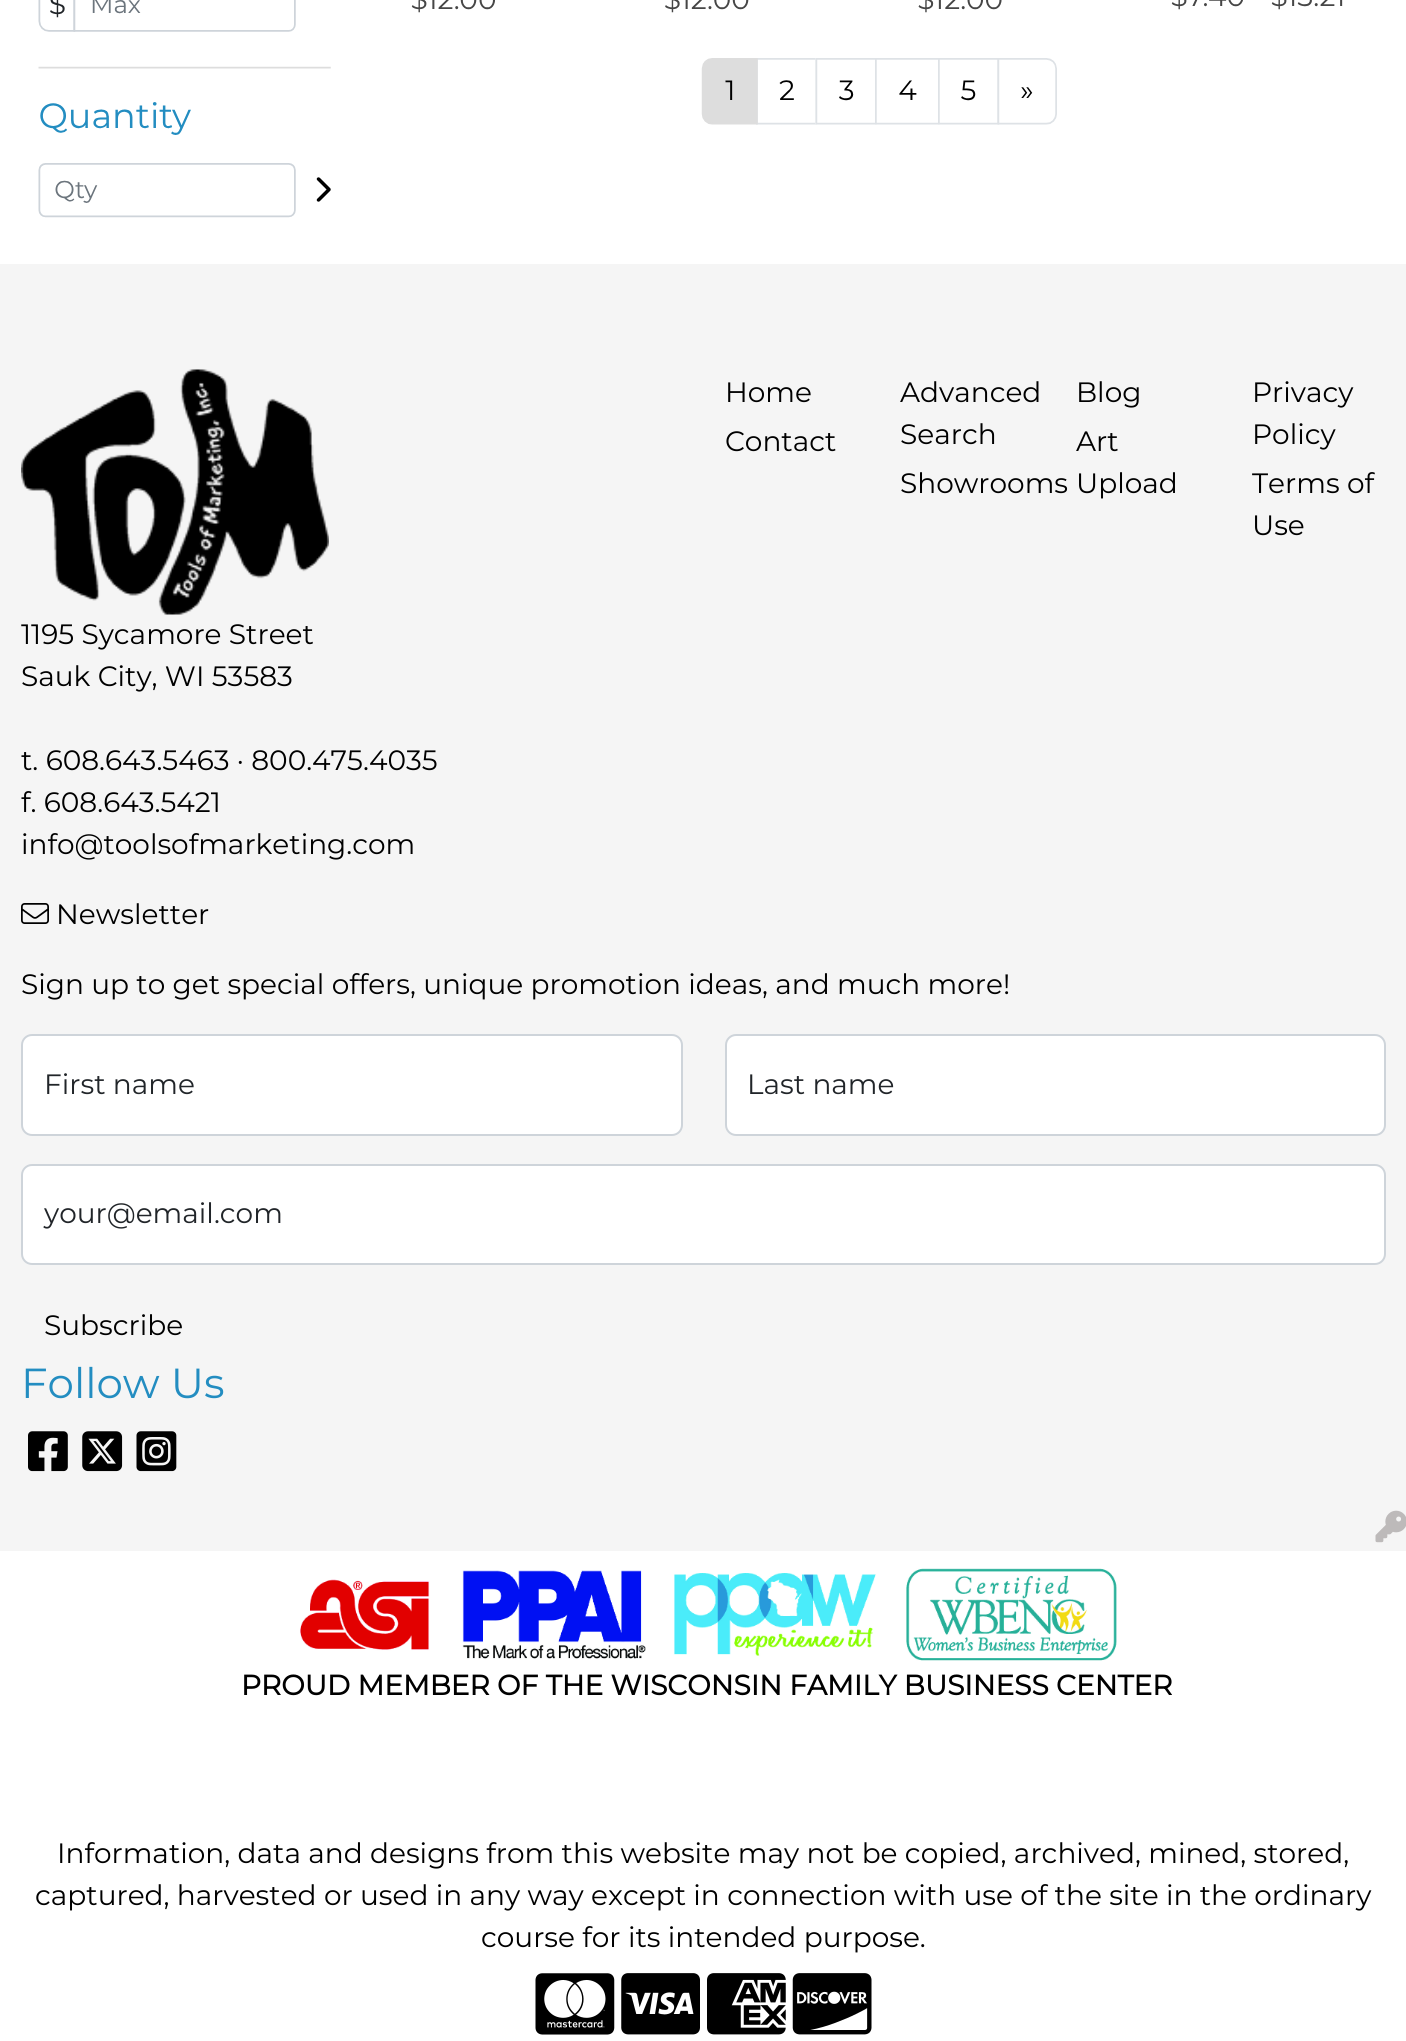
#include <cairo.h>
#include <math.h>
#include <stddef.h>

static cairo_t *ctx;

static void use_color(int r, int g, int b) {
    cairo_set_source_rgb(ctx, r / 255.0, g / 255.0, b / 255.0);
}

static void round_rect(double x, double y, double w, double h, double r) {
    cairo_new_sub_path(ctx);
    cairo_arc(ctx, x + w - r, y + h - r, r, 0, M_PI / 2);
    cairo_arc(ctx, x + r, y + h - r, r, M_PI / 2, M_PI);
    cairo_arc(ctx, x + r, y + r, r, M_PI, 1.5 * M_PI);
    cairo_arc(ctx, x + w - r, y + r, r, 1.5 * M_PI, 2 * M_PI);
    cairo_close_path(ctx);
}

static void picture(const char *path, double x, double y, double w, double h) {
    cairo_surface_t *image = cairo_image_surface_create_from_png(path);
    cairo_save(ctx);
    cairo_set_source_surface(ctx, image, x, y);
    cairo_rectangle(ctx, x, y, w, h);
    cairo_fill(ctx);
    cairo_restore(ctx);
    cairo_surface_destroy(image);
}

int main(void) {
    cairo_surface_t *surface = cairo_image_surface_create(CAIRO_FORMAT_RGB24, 1406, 2041);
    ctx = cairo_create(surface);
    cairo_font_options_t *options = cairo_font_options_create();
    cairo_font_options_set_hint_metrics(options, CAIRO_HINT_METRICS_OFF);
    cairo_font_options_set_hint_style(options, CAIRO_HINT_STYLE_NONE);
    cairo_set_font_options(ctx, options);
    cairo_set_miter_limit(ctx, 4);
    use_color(255, 255, 255);
    cairo_paint(ctx);
    picture("img1.png", 38, 0, 1305, 218);
    use_color(245, 245, 245);
    cairo_rectangle(ctx, 0, 264, 1406, 1287);
    cairo_fill(ctx);
    cairo_select_font_face(ctx, "Montserrat Thin", CAIRO_FONT_SLANT_NORMAL, CAIRO_FONT_WEIGHT_NORMAL);
    cairo_set_font_size(ctx, 28);
    use_color(0, 0, 0);
    cairo_move_to(ctx, 725, 402);
    cairo_show_text(ctx, "Home");
    cairo_move_to(ctx, 725, 451);
    cairo_show_text(ctx, "Contact");
    cairo_move_to(ctx, 900, 402);
    cairo_show_text(ctx, "Advanced");
    cairo_move_to(ctx, 900, 444);
    cairo_show_text(ctx, "Search");
    cairo_move_to(ctx, 900, 493);
    cairo_show_text(ctx, "Showrooms");
    cairo_move_to(ctx, 1076, 402);
    cairo_show_text(ctx, "Blog");
    cairo_move_to(ctx, 1076, 451);
    cairo_show_text(ctx, "Art");
    cairo_move_to(ctx, 1076, 493);
    cairo_show_text(ctx, "Upload");
    cairo_move_to(ctx, 1252, 402);
    cairo_show_text(ctx, "Privacy");
    cairo_move_to(ctx, 1252, 444);
    cairo_show_text(ctx, "Policy");
    cairo_move_to(ctx, 1252, 493);
    cairo_show_text(ctx, "Terms of");
    cairo_move_to(ctx, 1252, 535);
    cairo_show_text(ctx, "Use");
    picture("img2.png", 21, 369, 308, 246);
    cairo_move_to(ctx, 21, 644);
    cairo_show_text(ctx, "1195 Sycamore Street");
    cairo_move_to(ctx, 21, 686);
    cairo_show_text(ctx, "Sauk City, WI 53583");
    cairo_move_to(ctx, 21, 770);
    cairo_show_text(ctx, "t. 608.643.5463 · 800.475.4035");
    cairo_move_to(ctx, 21, 812);
    cairo_show_text(ctx, "f. 608.643.5421");
    cairo_move_to(ctx, 21, 854);
    cairo_show_text(ctx, "info@toolsofmarketing.com");
    picture("img3.png", 21, 903, 28, 21);
    cairo_move_to(ctx, 56, 924);
    cairo_show_text(ctx, "Newsletter");
    cairo_move_to(ctx, 21, 994);
    cairo_show_text(ctx, "Sign up to get special offers, unique promotion ideas, and much more!");
    use_color(255, 255, 255);
    round_rect(22, 1035, 660, 100, 10);
    cairo_fill_preserve(ctx);
    use_color(206, 212, 218);
    cairo_stroke(ctx);
    use_color(33, 37, 41);
    cairo_move_to(ctx, 44, 1094);
    cairo_show_text(ctx, "First name");
    use_color(255, 255, 255);
    round_rect(726, 1035, 659, 100, 10);
    cairo_fill_preserve(ctx);
    use_color(206, 212, 218);
    cairo_stroke(ctx);
    use_color(33, 37, 41);
    cairo_move_to(ctx, 747, 1094);
    cairo_show_text(ctx, "Last name");
    use_color(255, 255, 255);
    round_rect(22, 1165, 1363, 99, 10);
    cairo_fill_preserve(ctx);
    use_color(206, 212, 218);
    cairo_stroke(ctx);
    use_color(33, 37, 41);
    cairo_move_to(ctx, 44, 1223);
    cairo_show_text(ctx, "your@email.com");
    use_color(0, 0, 0);
    cairo_move_to(ctx, 44, 1335);
    cairo_show_text(ctx, "Subscribe");
    cairo_set_font_size(ctx, 42);
    use_color(35, 141, 193);
    cairo_move_to(ctx, 21, 1398);
    cairo_show_text(ctx, "Follow Us");
    picture("img4.png", 28, 1431, 40, 41);
    picture("img5.png", 82, 1431, 41, 41);
    picture("img6.png", 136, 1431, 41, 41);
    picture("img7.png", 1375, 1510, 31, 33);
    picture("img8.png", 300, 1568, 817, 93);
    cairo_select_font_face(ctx, "Montserrat", CAIRO_FONT_SLANT_NORMAL, CAIRO_FONT_WEIGHT_BOLD);
    cairo_set_font_size(ctx, 28);
    use_color(0, 0, 0);
    cairo_move_to(ctx, 241, 1695);
    cairo_show_text(ctx, "PROUD MEMBER OF THE WISCONSIN FAMILY BUSINESS CENTER");
    cairo_select_font_face(ctx, "Montserrat Thin", CAIRO_FONT_SLANT_NORMAL, CAIRO_FONT_WEIGHT_NORMAL);
    cairo_move_to(ctx, 57, 1863);
    cairo_show_text(ctx, "Information, data and designs from this website may not be copied, archived, mined, stored,");
    cairo_move_to(ctx, 35, 1905);
    cairo_show_text(ctx, "captured, harvested or used in any way except in connection with use of the site in the ordinary");
    cairo_move_to(ctx, 481, 1947);
    cairo_show_text(ctx, "course for its intended purpose.");
    picture("img9.png", 535, 1973, 80, 62);
    picture("img10.png", 621, 1973, 79, 62);
    picture("img11.png", 707, 1973, 79, 62);
    picture("img12.png", 792, 1973, 80, 62);
    cairo_surface_write_to_png(surface, "result.png");
    cairo_font_options_destroy(options);
    cairo_destroy(ctx);
    cairo_surface_destroy(surface);
    return 0;
}
